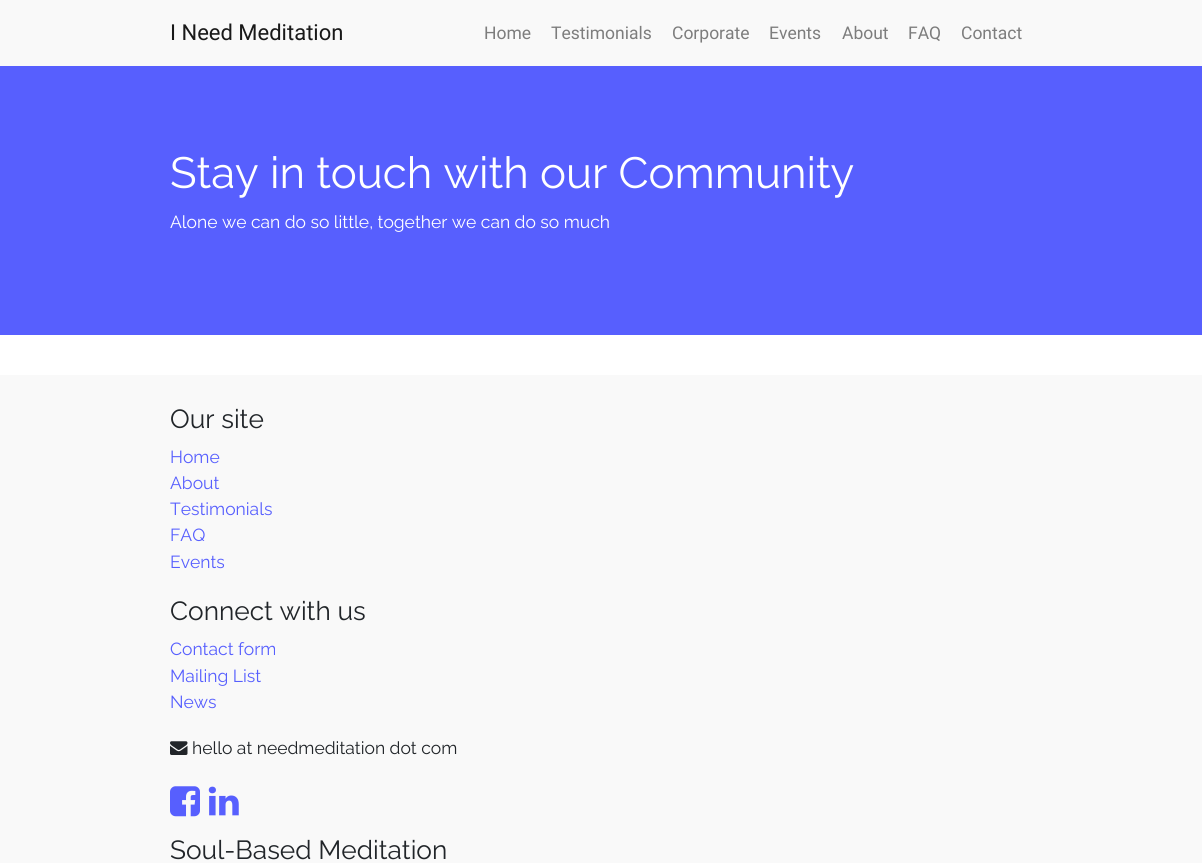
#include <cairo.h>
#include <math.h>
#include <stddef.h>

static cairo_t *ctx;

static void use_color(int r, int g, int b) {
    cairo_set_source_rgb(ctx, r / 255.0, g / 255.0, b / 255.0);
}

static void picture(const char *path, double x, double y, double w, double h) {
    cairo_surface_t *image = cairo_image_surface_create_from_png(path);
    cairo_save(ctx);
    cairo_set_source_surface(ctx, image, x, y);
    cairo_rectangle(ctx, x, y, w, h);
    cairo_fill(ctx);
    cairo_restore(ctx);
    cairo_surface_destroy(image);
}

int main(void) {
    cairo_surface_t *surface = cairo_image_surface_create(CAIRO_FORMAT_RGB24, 1202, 863);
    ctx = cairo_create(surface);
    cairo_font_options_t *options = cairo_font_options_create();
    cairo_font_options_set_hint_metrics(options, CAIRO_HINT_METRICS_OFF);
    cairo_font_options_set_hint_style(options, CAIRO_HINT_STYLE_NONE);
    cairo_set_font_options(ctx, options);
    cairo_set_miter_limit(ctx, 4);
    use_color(255, 255, 255);
    cairo_paint(ctx);
    use_color(249, 249, 249);
    cairo_rectangle(ctx, 0, 0, 1202, 66);
    cairo_fill(ctx);
    cairo_select_font_face(ctx, "Roboto", CAIRO_FONT_SLANT_NORMAL, CAIRO_FONT_WEIGHT_NORMAL);
    cairo_set_font_size(ctx, 22);
    use_color(25, 25, 25);
    cairo_move_to(ctx, 170, 40);
    cairo_show_text(ctx, "I Need Meditation");
    cairo_set_font_size(ctx, 17.5);
    use_color(125, 125, 125);
    cairo_move_to(ctx, 484, 39);
    cairo_show_text(ctx, "Home");
    cairo_move_to(ctx, 551, 39);
    cairo_show_text(ctx, "Testimonials");
    cairo_move_to(ctx, 672, 39);
    cairo_show_text(ctx, "Corporate");
    cairo_move_to(ctx, 769, 39);
    cairo_show_text(ctx, "Events");
    cairo_move_to(ctx, 842, 39);
    cairo_show_text(ctx, "About");
    cairo_move_to(ctx, 908, 39);
    cairo_show_text(ctx, "FAQ");
    cairo_move_to(ctx, 961, 39);
    cairo_show_text(ctx, "Contact");
    use_color(87, 95, 254);
    cairo_rectangle(ctx, 0, 66, 1202, 269);
    cairo_fill(ctx);
    cairo_select_font_face(ctx, "Raleway", CAIRO_FONT_SLANT_NORMAL, CAIRO_FONT_WEIGHT_NORMAL);
    cairo_set_font_size(ctx, 43.75);
    use_color(255, 255, 255);
    cairo_move_to(ctx, 170, 188);
    cairo_show_text(ctx, "Stay in touch with our Community");
    cairo_set_font_size(ctx, 17.5);
    cairo_move_to(ctx, 170, 228);
    cairo_show_text(ctx, "Alone we can do so little, together we can do so much");
    use_color(249, 249, 249);
    cairo_rectangle(ctx, 0, 375, 1202, 488);
    cairo_fill(ctx);
    cairo_set_font_size(ctx, 26.25);
    use_color(33, 37, 41);
    cairo_move_to(ctx, 170, 428);
    cairo_show_text(ctx, "Our site");
    cairo_set_font_size(ctx, 17.5);
    use_color(87, 95, 254);
    cairo_move_to(ctx, 170, 463);
    cairo_show_text(ctx, "Home");
    cairo_move_to(ctx, 170, 489);
    cairo_show_text(ctx, "About");
    cairo_move_to(ctx, 170, 515);
    cairo_show_text(ctx, "Testimonials");
    cairo_move_to(ctx, 170, 541);
    cairo_show_text(ctx, "FAQ");
    cairo_move_to(ctx, 170, 568);
    cairo_show_text(ctx, "Events");
    cairo_set_font_size(ctx, 26.25);
    use_color(33, 37, 41);
    cairo_move_to(ctx, 170, 620);
    cairo_show_text(ctx, "Connect with us");
    cairo_set_font_size(ctx, 17.5);
    use_color(87, 95, 254);
    cairo_move_to(ctx, 170, 655);
    cairo_show_text(ctx, "Contact form");
    cairo_move_to(ctx, 170, 682);
    cairo_show_text(ctx, "Mailing List");
    cairo_move_to(ctx, 170, 708);
    cairo_show_text(ctx, "News");
    picture("img1.png", 170, 741, 18, 14);
    use_color(33, 37, 41);
    cairo_move_to(ctx, 192, 754);
    cairo_show_text(ctx, "hello at needmeditation dot com");
    picture("img2.png", 170, 786, 30, 31);
    picture("img3.png", 208, 786, 31, 30);
    cairo_set_font_size(ctx, 26.25);
    cairo_move_to(ctx, 170, 859);
    cairo_show_text(ctx, "Soul-Based Meditation");
    cairo_surface_write_to_png(surface, "result.png");
    cairo_font_options_destroy(options);
    cairo_destroy(ctx);
    cairo_surface_destroy(surface);
    return 0;
}
